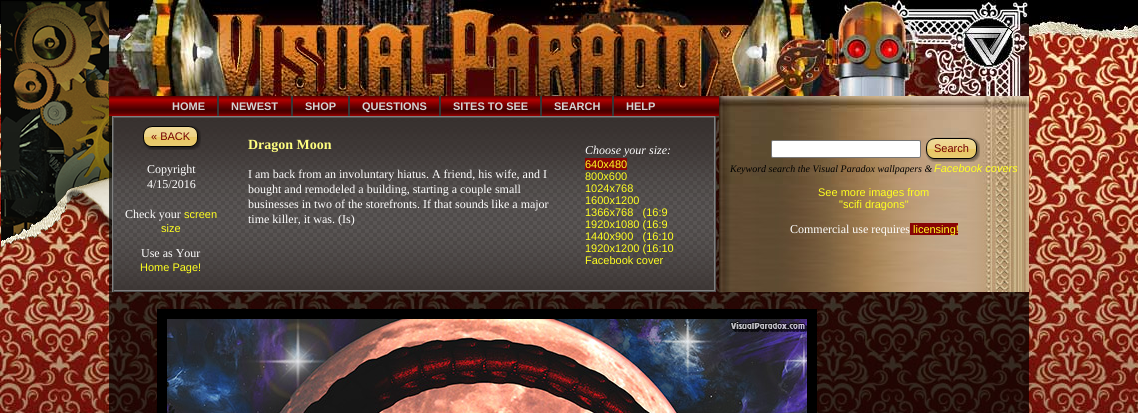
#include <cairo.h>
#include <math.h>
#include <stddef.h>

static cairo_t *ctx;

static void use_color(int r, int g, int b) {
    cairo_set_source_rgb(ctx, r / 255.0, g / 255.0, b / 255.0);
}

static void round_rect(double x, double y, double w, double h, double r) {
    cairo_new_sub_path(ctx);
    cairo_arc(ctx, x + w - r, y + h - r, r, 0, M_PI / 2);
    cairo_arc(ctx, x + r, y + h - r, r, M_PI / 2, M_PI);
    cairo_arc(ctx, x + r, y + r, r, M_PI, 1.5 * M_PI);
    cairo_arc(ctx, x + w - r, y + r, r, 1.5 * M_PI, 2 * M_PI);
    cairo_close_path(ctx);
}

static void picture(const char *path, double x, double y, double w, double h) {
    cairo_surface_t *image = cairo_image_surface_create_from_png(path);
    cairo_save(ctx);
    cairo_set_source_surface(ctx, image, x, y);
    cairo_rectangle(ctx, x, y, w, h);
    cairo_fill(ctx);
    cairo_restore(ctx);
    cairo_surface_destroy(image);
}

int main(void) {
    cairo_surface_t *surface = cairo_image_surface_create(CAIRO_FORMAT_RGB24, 1138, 413);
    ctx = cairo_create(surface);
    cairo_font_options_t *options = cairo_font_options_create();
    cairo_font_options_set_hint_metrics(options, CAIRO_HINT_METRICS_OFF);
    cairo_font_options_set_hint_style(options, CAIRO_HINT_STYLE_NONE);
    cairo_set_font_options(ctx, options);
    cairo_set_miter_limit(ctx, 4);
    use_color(255, 255, 255);
    cairo_paint(ctx);
    picture("img1.png", 0, 0, 1138, 413);
    picture("img2.png", 1, 1, 111, 250);
    picture("img3.png", 109, 0, 920, 96);
    picture("img4.png", 109, 96, 610, 20);
    cairo_select_font_face(ctx, "Liberation Sans", CAIRO_FONT_SLANT_NORMAL, CAIRO_FONT_WEIGHT_BOLD);
    cairo_set_font_size(ctx, 11);
    use_color(212, 212, 212);
    cairo_move_to(ctx, 172, 110);
    cairo_show_text(ctx, "HOME");
    use_color(54, 54, 54);
    cairo_rectangle(ctx, 217, 96, 2, 20);
    cairo_fill(ctx);
    use_color(212, 212, 212);
    cairo_move_to(ctx, 231, 110);
    cairo_show_text(ctx, "NEWEST");
    use_color(54, 54, 54);
    cairo_rectangle(ctx, 291, 96, 2, 20);
    cairo_fill(ctx);
    use_color(212, 212, 212);
    cairo_move_to(ctx, 305, 110);
    cairo_show_text(ctx, "SHOP");
    use_color(54, 54, 54);
    cairo_rectangle(ctx, 348, 96, 2, 20);
    cairo_fill(ctx);
    use_color(212, 212, 212);
    cairo_move_to(ctx, 362, 110);
    cairo_show_text(ctx, "QUESTIONS");
    use_color(54, 54, 54);
    cairo_rectangle(ctx, 439, 96, 2, 20);
    cairo_fill(ctx);
    use_color(212, 212, 212);
    cairo_move_to(ctx, 453, 110);
    cairo_show_text(ctx, "SITES TO SEE");
    use_color(54, 54, 54);
    cairo_rectangle(ctx, 540, 96, 2, 20);
    cairo_fill(ctx);
    use_color(212, 212, 212);
    cairo_move_to(ctx, 554, 110);
    cairo_show_text(ctx, "SEARCH");
    use_color(54, 54, 54);
    cairo_rectangle(ctx, 612, 96, 2, 20);
    cairo_fill(ctx);
    use_color(212, 212, 212);
    cairo_move_to(ctx, 626, 110);
    cairo_show_text(ctx, "HELP");
    cairo_set_source_rgba(ctx, 0, 0, 0, 0.7);
    cairo_rectangle(ctx, 109, 116, 610, 176);
    cairo_fill(ctx);
    picture("img5.png", 114, 118, 600, 172);
    use_color(128, 128, 128);
    cairo_rectangle(ctx, 112, 116, 604, 1);
    cairo_fill(ctx);
    use_color(85, 85, 85);
    cairo_rectangle(ctx, 715, 116, 1, 176);
    cairo_fill(ctx);
    cairo_rectangle(ctx, 112, 291, 604, 1);
    cairo_fill(ctx);
    use_color(128, 128, 128);
    cairo_rectangle(ctx, 112, 116, 1, 176);
    cairo_fill(ctx);
    use_color(85, 85, 85);
    cairo_rectangle(ctx, 113, 117, 602, 1);
    cairo_fill(ctx);
    use_color(128, 128, 128);
    cairo_rectangle(ctx, 714, 117, 1, 174);
    cairo_fill(ctx);
    cairo_rectangle(ctx, 113, 290, 602, 1);
    cairo_fill(ctx);
    use_color(85, 85, 85);
    cairo_rectangle(ctx, 113, 117, 1, 174);
    cairo_fill(ctx);
    picture("img6.png", 143, 126, 43, 24);
    picture("img7.png", 186, 126, 15, 24);
    cairo_select_font_face(ctx, "Liberation Sans", CAIRO_FONT_SLANT_NORMAL, CAIRO_FONT_WEIGHT_NORMAL);
    use_color(117, 0, 0);
    cairo_move_to(ctx, 151, 140);
    cairo_show_text(ctx, "« BACK");
    cairo_select_font_face(ctx, "Liberation Serif", CAIRO_FONT_SLANT_NORMAL, CAIRO_FONT_WEIGHT_NORMAL);
    cairo_set_font_size(ctx, 12);
    use_color(255, 255, 255);
    cairo_move_to(ctx, 147, 173);
    cairo_show_text(ctx, "Copyright");
    cairo_move_to(ctx, 147, 188);
    cairo_show_text(ctx, "4/15/2016");
    cairo_move_to(ctx, 125, 218);
    cairo_show_text(ctx, "Check your");
    cairo_select_font_face(ctx, "Liberation Sans", CAIRO_FONT_SLANT_NORMAL, CAIRO_FONT_WEIGHT_NORMAL);
    cairo_set_font_size(ctx, 11);
    use_color(255, 255, 32);
    cairo_move_to(ctx, 184, 218);
    cairo_show_text(ctx, "screen");
    cairo_move_to(ctx, 161, 232);
    cairo_show_text(ctx, "size");
    cairo_select_font_face(ctx, "Liberation Serif", CAIRO_FONT_SLANT_NORMAL, CAIRO_FONT_WEIGHT_NORMAL);
    cairo_set_font_size(ctx, 12);
    use_color(255, 255, 255);
    cairo_move_to(ctx, 141, 257);
    cairo_show_text(ctx, "Use as Your");
    cairo_select_font_face(ctx, "Liberation Sans", CAIRO_FONT_SLANT_NORMAL, CAIRO_FONT_WEIGHT_NORMAL);
    cairo_set_font_size(ctx, 11);
    use_color(255, 255, 32);
    cairo_move_to(ctx, 140, 271);
    cairo_show_text(ctx, "Home Page!");
    cairo_select_font_face(ctx, "Liberation Serif", CAIRO_FONT_SLANT_NORMAL, CAIRO_FONT_WEIGHT_BOLD);
    cairo_set_font_size(ctx, 14);
    use_color(255, 255, 128);
    cairo_move_to(ctx, 248, 149);
    cairo_show_text(ctx, "Dragon Moon");
    cairo_select_font_face(ctx, "Liberation Serif", CAIRO_FONT_SLANT_NORMAL, CAIRO_FONT_WEIGHT_NORMAL);
    cairo_set_font_size(ctx, 12);
    use_color(255, 255, 255);
    cairo_move_to(ctx, 248, 178);
    cairo_show_text(ctx, "I am back from an involuntary hiatus. A friend, his wife, and I");
    cairo_move_to(ctx, 248, 193);
    cairo_show_text(ctx, "bought and remodeled a building, starting a couple small");
    cairo_move_to(ctx, 248, 208);
    cairo_show_text(ctx, "businesses in two of the storefronts. If that sounds like a major");
    cairo_move_to(ctx, 248, 223);
    cairo_show_text(ctx, "time killer, it was. (Is)");
    cairo_select_font_face(ctx, "Liberation Serif", CAIRO_FONT_SLANT_ITALIC, CAIRO_FONT_WEIGHT_NORMAL);
    cairo_move_to(ctx, 585, 154);
    cairo_show_text(ctx, "Choose your size:");
    use_color(136, 5, 5);
    cairo_rectangle(ctx, 585, 158, 42, 12);
    cairo_fill(ctx);
    cairo_select_font_face(ctx, "Liberation Sans", CAIRO_FONT_SLANT_NORMAL, CAIRO_FONT_WEIGHT_NORMAL);
    cairo_set_font_size(ctx, 11);
    use_color(255, 255, 32);
    cairo_move_to(ctx, 585, 168);
    cairo_show_text(ctx, "640x480");
    cairo_move_to(ctx, 585, 180);
    cairo_show_text(ctx, "800x600");
    cairo_move_to(ctx, 585, 192);
    cairo_show_text(ctx, "1024x768");
    cairo_move_to(ctx, 585, 204);
    cairo_show_text(ctx, "1600x1200");
    cairo_move_to(ctx, 585, 216);
    cairo_show_text(ctx, "1366x768   (16:9");
    cairo_move_to(ctx, 585, 228);
    cairo_show_text(ctx, "1920x1080 (16:9");
    cairo_move_to(ctx, 585, 240);
    cairo_show_text(ctx, "1440x900   (16:10");
    cairo_move_to(ctx, 585, 252);
    cairo_show_text(ctx, "1920x1200 (16:10");
    cairo_move_to(ctx, 585, 264);
    cairo_show_text(ctx, "Facebook cover");
    picture("img8.png", 719, 96, 310, 88);
    use_color(255, 255, 255);
    round_rect(771.5, 140.5, 149, 17, 1.5);
    cairo_fill_preserve(ctx);
    use_color(118, 118, 118);
    cairo_set_line_width(ctx, 1);
    cairo_stroke(ctx);
    picture("img9.png", 925, 137, 40, 25);
    picture("img10.png", 965, 137, 15, 25);
    use_color(117, 0, 0);
    cairo_move_to(ctx, 934, 152);
    cairo_show_text(ctx, "Search");
    cairo_select_font_face(ctx, "Liberation Serif", CAIRO_FONT_SLANT_ITALIC, CAIRO_FONT_WEIGHT_NORMAL);
    cairo_set_font_size(ctx, 10);
    use_color(0, 0, 0);
    cairo_move_to(ctx, 730, 172);
    cairo_show_text(ctx, "Keyword search the Visual Paradox wallpapers &");
    cairo_select_font_face(ctx, "Liberation Sans", CAIRO_FONT_SLANT_ITALIC, CAIRO_FONT_WEIGHT_NORMAL);
    cairo_set_font_size(ctx, 11);
    use_color(255, 255, 32);
    cairo_move_to(ctx, 934, 172);
    cairo_show_text(ctx, "Facebook covers");
    picture("img11.png", 719, 184, 310, 108);
    cairo_select_font_face(ctx, "Liberation Sans", CAIRO_FONT_SLANT_NORMAL, CAIRO_FONT_WEIGHT_NORMAL);
    cairo_move_to(ctx, 818, 196);
    cairo_show_text(ctx, "See more images from");
    cairo_move_to(ctx, 839, 208);
    cairo_show_text(ctx, "\"scifi dragons\"");
    cairo_select_font_face(ctx, "Liberation Serif", CAIRO_FONT_SLANT_NORMAL, CAIRO_FONT_WEIGHT_NORMAL);
    cairo_set_font_size(ctx, 12);
    use_color(255, 255, 255);
    cairo_move_to(ctx, 790, 233);
    cairo_show_text(ctx, "Commercial use requires");
    use_color(136, 5, 5);
    cairo_rectangle(ctx, 910, 223, 48, 12);
    cairo_fill(ctx);
    cairo_select_font_face(ctx, "Liberation Sans", CAIRO_FONT_SLANT_NORMAL, CAIRO_FONT_WEIGHT_NORMAL);
    cairo_set_font_size(ctx, 11);
    use_color(255, 255, 32);
    cairo_move_to(ctx, 913, 233);
    cairo_show_text(ctx, "licensing!");
    cairo_set_source_rgba(ctx, 0, 0, 0, 0.7);
    cairo_rectangle(ctx, 109, 292, 920, 121);
    cairo_fill(ctx);
    cairo_rectangle(ctx, 162, 314, 650, 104);
    use_color(0, 0, 0);
    cairo_set_line_width(ctx, 10);
    cairo_stroke(ctx);
    picture("img12.png", 167, 319, 640, 94);
    cairo_surface_write_to_png(surface, "result.png");
    cairo_font_options_destroy(options);
    cairo_destroy(ctx);
    cairo_surface_destroy(surface);
    return 0;
}
